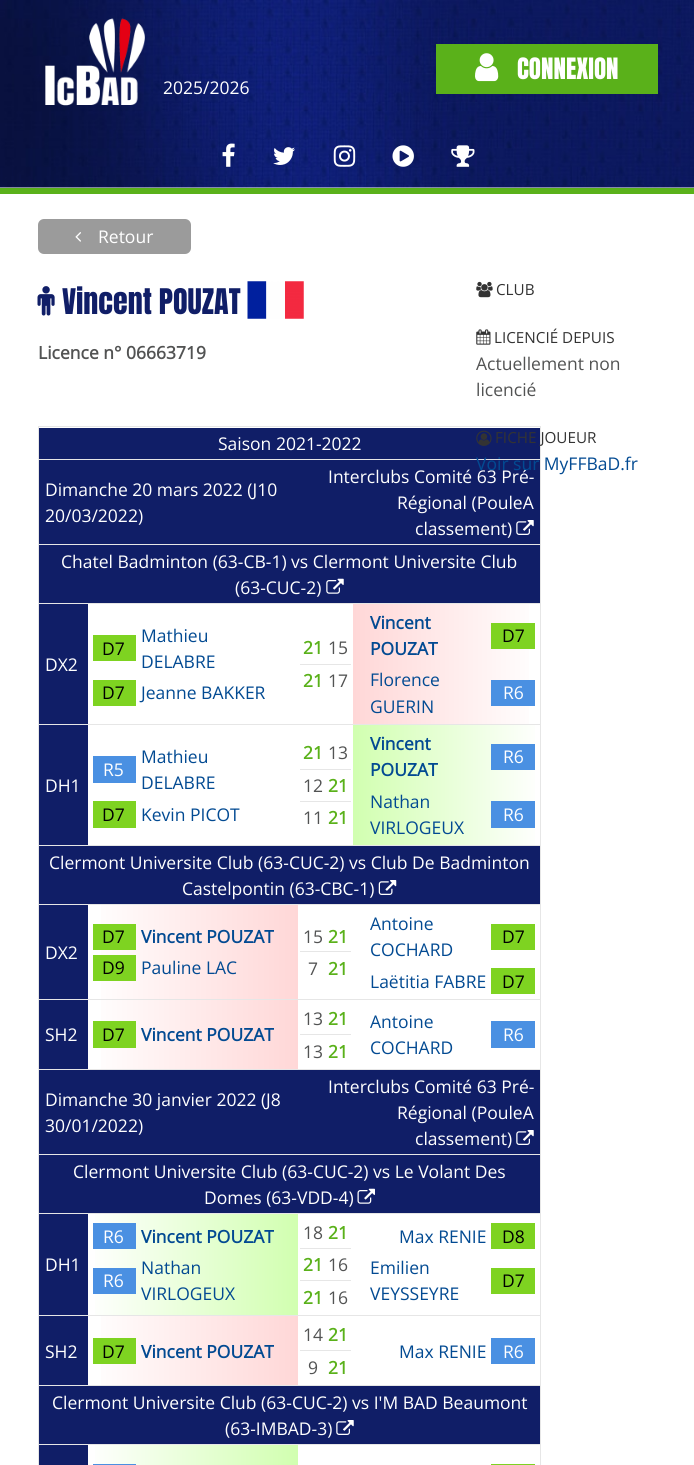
#include <cairo.h>
#include <math.h>
#include <stddef.h>

static cairo_t *ctx;

static void use_color(int r, int g, int b) {
    cairo_set_source_rgb(ctx, r / 255.0, g / 255.0, b / 255.0);
}

static void round_rect(double x, double y, double w, double h, double r) {
    cairo_new_sub_path(ctx);
    cairo_arc(ctx, x + w - r, y + h - r, r, 0, M_PI / 2);
    cairo_arc(ctx, x + r, y + h - r, r, M_PI / 2, M_PI);
    cairo_arc(ctx, x + r, y + r, r, M_PI, 1.5 * M_PI);
    cairo_arc(ctx, x + w - r, y + r, r, 1.5 * M_PI, 2 * M_PI);
    cairo_close_path(ctx);
}

static void picture(const char *path, double x, double y, double w, double h) {
    cairo_surface_t *image = cairo_image_surface_create_from_png(path);
    cairo_save(ctx);
    cairo_set_source_surface(ctx, image, x, y);
    cairo_rectangle(ctx, x, y, w, h);
    cairo_fill(ctx);
    cairo_restore(ctx);
    cairo_surface_destroy(image);
}

int main(void) {
    cairo_surface_t *surface = cairo_image_surface_create(CAIRO_FORMAT_RGB24, 694, 1465);
    ctx = cairo_create(surface);
    cairo_font_options_t *options = cairo_font_options_create();
    cairo_font_options_set_hint_metrics(options, CAIRO_HINT_METRICS_OFF);
    cairo_font_options_set_hint_style(options, CAIRO_HINT_STYLE_NONE);
    cairo_set_font_options(ctx, options);
    cairo_set_miter_limit(ctx, 4);
    cairo_pattern_t *gradient;
    use_color(255, 255, 255);
    cairo_paint(ctx);
    picture("img1.png", 0, 0, 694, 188);
    use_color(90, 177, 26);
    cairo_rectangle(ctx, 0, 188, 694, 6);
    cairo_fill(ctx);
    picture("img2.png", 45, 18, 100, 88);
    cairo_rectangle(ctx, 436, 44, 222, 50);
    cairo_fill(ctx);
    picture("img3.png", 475, 53, 24, 29);
    cairo_select_font_face(ctx, "Anton", CAIRO_FONT_SLANT_NORMAL, CAIRO_FONT_WEIGHT_NORMAL);
    cairo_set_font_size(ctx, 25);
    use_color(255, 255, 255);
    cairo_move_to(ctx, 517, 79);
    cairo_show_text(ctx, "CONNEXION");
    cairo_select_font_face(ctx, "Open Sans", CAIRO_FONT_SLANT_NORMAL, CAIRO_FONT_WEIGHT_NORMAL);
    cairo_set_font_size(ctx, 17.5);
    cairo_move_to(ctx, 163, 94);
    cairo_show_text(ctx, "2025/2026");
    picture("img4.png", 222, 143, 13, 24);
    picture("img5.png", 273, 147, 22, 18);
    picture("img6.png", 333, 145, 23, 22);
    picture("img7.png", 392, 145, 22, 22);
    picture("img8.png", 451, 145, 24, 22);
    use_color(155, 155, 155);
    round_rect(38, 219, 153, 35, 6);
    cairo_fill(ctx);
    picture("img9.png", 75, 232, 6, 10);
    use_color(255, 255, 255);
    cairo_move_to(ctx, 98, 243);
    cairo_show_text(ctx, "Retour");
    picture("img10.png", 37, 286, 18, 30);
    cairo_select_font_face(ctx, "Anton", CAIRO_FONT_SLANT_NORMAL, CAIRO_FONT_WEIGHT_NORMAL);
    cairo_set_font_size(ctx, 30);
    use_color(16, 30, 103);
    cairo_move_to(ctx, 62, 314);
    cairo_show_text(ctx, "Vincent POUZAT");
    picture("img11.png", 247, 281, 57, 38);
    cairo_select_font_face(ctx, "Open Sans", CAIRO_FONT_SLANT_NORMAL, CAIRO_FONT_WEIGHT_BOLD);
    cairo_set_font_size(ctx, 17.5);
    use_color(82, 83, 83);
    cairo_move_to(ctx, 38, 359);
    cairo_show_text(ctx, "Licence n° 06663719");
    use_color(230, 230, 230);
    cairo_rectangle(ctx, 38, 426, 503, 1);
    cairo_fill(ctx);
    cairo_rectangle(ctx, 540, 426, 1, 1039);
    cairo_fill(ctx);
    cairo_rectangle(ctx, 38, 426, 1, 1039);
    cairo_fill(ctx);
    use_color(16, 30, 103);
    cairo_rectangle(ctx, 39, 428, 501, 31);
    cairo_fill(ctx);
    cairo_select_font_face(ctx, "Open Sans", CAIRO_FONT_SLANT_NORMAL, CAIRO_FONT_WEIGHT_NORMAL);
    use_color(255, 255, 255);
    cairo_move_to(ctx, 218, 450);
    cairo_show_text(ctx, "Saison 2021-2022");
    use_color(230, 230, 230);
    cairo_rectangle(ctx, 38, 459, 503, 1);
    cairo_fill(ctx);
    use_color(16, 30, 103);
    cairo_rectangle(ctx, 39, 460, 501, 84);
    cairo_fill(ctx);
    use_color(255, 255, 255);
    cairo_move_to(ctx, 45, 496);
    cairo_show_text(ctx, "Dimanche 20 mars 2022 (J10");
    cairo_move_to(ctx, 45, 522);
    cairo_show_text(ctx, "20/03/2022)");
    cairo_move_to(ctx, 328, 483);
    cairo_show_text(ctx, "Interclubs Comité 63 Pré-");
    cairo_move_to(ctx, 397, 509);
    cairo_show_text(ctx, "Régional (PouleA");
    cairo_move_to(ctx, 415, 535);
    cairo_show_text(ctx, "classement)");
    picture("img12.png", 516, 520, 18, 15);
    use_color(230, 230, 230);
    cairo_rectangle(ctx, 38, 544, 503, 1);
    cairo_fill(ctx);
    use_color(16, 30, 103);
    cairo_rectangle(ctx, 39, 545, 501, 58);
    cairo_fill(ctx);
    use_color(255, 255, 255);
    cairo_move_to(ctx, 61, 568);
    cairo_show_text(ctx, "Chatel Badminton (63-CB-1) vs Clermont Universite Club");
    cairo_move_to(ctx, 235, 594);
    cairo_show_text(ctx, "(63-CUC-2)");
    picture("img13.png", 326, 578, 18, 16);
    use_color(230, 230, 230);
    cairo_rectangle(ctx, 38, 603, 503, 1);
    cairo_fill(ctx);
    use_color(16, 30, 103);
    cairo_rectangle(ctx, 39, 604, 49, 120);
    cairo_fill(ctx);
    use_color(255, 255, 255);
    cairo_move_to(ctx, 45, 671);
    cairo_show_text(ctx, "DX2");
    use_color(126, 211, 33);
    cairo_rectangle(ctx, 93, 635, 43, 26);
    cairo_fill(ctx);
    use_color(0, 0, 0);
    cairo_move_to(ctx, 102, 655);
    cairo_show_text(ctx, "D7");
    use_color(2, 74, 146);
    cairo_move_to(ctx, 141, 642);
    cairo_show_text(ctx, "Mathieu");
    cairo_move_to(ctx, 141, 668);
    cairo_show_text(ctx, "DELABRE");
    use_color(126, 211, 33);
    cairo_rectangle(ctx, 93, 680, 43, 26);
    cairo_fill(ctx);
    use_color(0, 0, 0);
    cairo_move_to(ctx, 102, 699);
    cairo_show_text(ctx, "D7");
    use_color(2, 74, 146);
    cairo_move_to(ctx, 141, 699);
    cairo_show_text(ctx, "Jeanne BAKKER");
    cairo_select_font_face(ctx, "Open Sans", CAIRO_FONT_SLANT_NORMAL, CAIRO_FONT_WEIGHT_BOLD);
    use_color(90, 177, 26);
    cairo_move_to(ctx, 303, 654);
    cairo_show_text(ctx, "21");
    cairo_select_font_face(ctx, "Open Sans", CAIRO_FONT_SLANT_NORMAL, CAIRO_FONT_WEIGHT_NORMAL);
    use_color(82, 83, 83);
    cairo_move_to(ctx, 328, 654);
    cairo_show_text(ctx, "15");
    use_color(230, 230, 230);
    cairo_rectangle(ctx, 300, 664, 51, 1);
    cairo_fill(ctx);
    cairo_select_font_face(ctx, "Open Sans", CAIRO_FONT_SLANT_NORMAL, CAIRO_FONT_WEIGHT_BOLD);
    use_color(90, 177, 26);
    cairo_move_to(ctx, 303, 687);
    cairo_show_text(ctx, "21");
    cairo_select_font_face(ctx, "Open Sans", CAIRO_FONT_SLANT_NORMAL, CAIRO_FONT_WEIGHT_NORMAL);
    use_color(82, 83, 83);
    cairo_move_to(ctx, 328, 687);
    cairo_show_text(ctx, "17");
    gradient = cairo_pattern_create_linear(541, 664, 353, 664);
    cairo_pattern_add_color_stop_rgba(gradient, 0, 1, 1, 1, 1);
    cairo_pattern_add_color_stop_rgba(gradient, 1, 1, 0.843, 0.843, 1);
    cairo_set_source(ctx, gradient);
    cairo_pattern_destroy(gradient);
    cairo_rectangle(ctx, 353, 604, 176, 120);
    cairo_fill(ctx);
    cairo_select_font_face(ctx, "Open Sans", CAIRO_FONT_SLANT_NORMAL, CAIRO_FONT_WEIGHT_BOLD);
    use_color(2, 74, 146);
    cairo_move_to(ctx, 370, 629);
    cairo_show_text(ctx, "Vincent");
    cairo_move_to(ctx, 370, 655);
    cairo_show_text(ctx, "POUZAT");
    use_color(126, 211, 33);
    cairo_rectangle(ctx, 491, 623, 44, 26);
    cairo_fill(ctx);
    cairo_select_font_face(ctx, "Open Sans", CAIRO_FONT_SLANT_NORMAL, CAIRO_FONT_WEIGHT_NORMAL);
    use_color(0, 0, 0);
    cairo_move_to(ctx, 502, 642);
    cairo_show_text(ctx, "D7");
    use_color(2, 74, 146);
    cairo_move_to(ctx, 370, 686);
    cairo_show_text(ctx, "Florence");
    cairo_move_to(ctx, 370, 713);
    cairo_show_text(ctx, "GUERIN");
    use_color(74, 144, 226);
    cairo_rectangle(ctx, 491, 680, 44, 26);
    cairo_fill(ctx);
    use_color(255, 255, 255);
    cairo_move_to(ctx, 503, 699);
    cairo_show_text(ctx, "R6");
    use_color(230, 230, 230);
    cairo_rectangle(ctx, 38, 724, 503, 1);
    cairo_fill(ctx);
    use_color(16, 30, 103);
    cairo_rectangle(ctx, 39, 725, 49, 120);
    cairo_fill(ctx);
    use_color(255, 255, 255);
    cairo_move_to(ctx, 45, 792);
    cairo_show_text(ctx, "DH1");
    use_color(74, 144, 226);
    cairo_rectangle(ctx, 93, 756, 43, 27);
    cairo_fill(ctx);
    use_color(255, 255, 255);
    cairo_move_to(ctx, 103, 776);
    cairo_show_text(ctx, "R5");
    use_color(2, 74, 146);
    cairo_move_to(ctx, 141, 763);
    cairo_show_text(ctx, "Mathieu");
    cairo_move_to(ctx, 141, 789);
    cairo_show_text(ctx, "DELABRE");
    use_color(126, 211, 33);
    cairo_rectangle(ctx, 93, 801, 43, 27);
    cairo_fill(ctx);
    use_color(0, 0, 0);
    cairo_move_to(ctx, 102, 821);
    cairo_show_text(ctx, "D7");
    use_color(2, 74, 146);
    cairo_move_to(ctx, 141, 821);
    cairo_show_text(ctx, "Kevin PICOT");
    cairo_select_font_face(ctx, "Open Sans", CAIRO_FONT_SLANT_NORMAL, CAIRO_FONT_WEIGHT_BOLD);
    use_color(90, 177, 26);
    cairo_move_to(ctx, 303, 759);
    cairo_show_text(ctx, "21");
    cairo_select_font_face(ctx, "Open Sans", CAIRO_FONT_SLANT_NORMAL, CAIRO_FONT_WEIGHT_NORMAL);
    use_color(82, 83, 83);
    cairo_move_to(ctx, 328, 759);
    cairo_show_text(ctx, "13");
    use_color(230, 230, 230);
    cairo_rectangle(ctx, 300, 769, 51, 1);
    cairo_fill(ctx);
    use_color(82, 83, 83);
    cairo_move_to(ctx, 303, 792);
    cairo_show_text(ctx, "12");
    cairo_select_font_face(ctx, "Open Sans", CAIRO_FONT_SLANT_NORMAL, CAIRO_FONT_WEIGHT_BOLD);
    use_color(90, 177, 26);
    cairo_move_to(ctx, 328, 792);
    cairo_show_text(ctx, "21");
    use_color(230, 230, 230);
    cairo_rectangle(ctx, 300, 801, 51, 1);
    cairo_fill(ctx);
    cairo_select_font_face(ctx, "Open Sans", CAIRO_FONT_SLANT_NORMAL, CAIRO_FONT_WEIGHT_NORMAL);
    use_color(82, 83, 83);
    cairo_move_to(ctx, 303, 824);
    cairo_show_text(ctx, "11");
    cairo_select_font_face(ctx, "Open Sans", CAIRO_FONT_SLANT_NORMAL, CAIRO_FONT_WEIGHT_BOLD);
    use_color(90, 177, 26);
    cairo_move_to(ctx, 328, 824);
    cairo_show_text(ctx, "21");
    gradient = cairo_pattern_create_linear(541, 786, 353, 786);
    cairo_pattern_add_color_stop_rgba(gradient, 0, 1, 1, 1, 1);
    cairo_pattern_add_color_stop_rgba(gradient, 1, 0.82, 1, 0.69, 1);
    cairo_set_source(ctx, gradient);
    cairo_pattern_destroy(gradient);
    cairo_rectangle(ctx, 353, 725, 182, 120);
    cairo_fill(ctx);
    use_color(2, 74, 146);
    cairo_move_to(ctx, 370, 750);
    cairo_show_text(ctx, "Vincent");
    cairo_move_to(ctx, 370, 776);
    cairo_show_text(ctx, "POUZAT");
    use_color(74, 144, 226);
    cairo_rectangle(ctx, 491, 744, 44, 26);
    cairo_fill(ctx);
    cairo_select_font_face(ctx, "Open Sans", CAIRO_FONT_SLANT_NORMAL, CAIRO_FONT_WEIGHT_NORMAL);
    use_color(255, 255, 255);
    cairo_move_to(ctx, 503, 763);
    cairo_show_text(ctx, "R6");
    use_color(2, 74, 146);
    cairo_move_to(ctx, 370, 808);
    cairo_show_text(ctx, "Nathan");
    cairo_move_to(ctx, 370, 834);
    cairo_show_text(ctx, "VIRLOGEUX");
    use_color(74, 144, 226);
    cairo_rectangle(ctx, 491, 801, 44, 27);
    cairo_fill(ctx);
    use_color(255, 255, 255);
    cairo_move_to(ctx, 503, 821);
    cairo_show_text(ctx, "R6");
    use_color(230, 230, 230);
    cairo_rectangle(ctx, 38, 845, 503, 1);
    cairo_fill(ctx);
    use_color(16, 30, 103);
    cairo_rectangle(ctx, 39, 846, 501, 58);
    cairo_fill(ctx);
    use_color(255, 255, 255);
    cairo_move_to(ctx, 49, 869);
    cairo_show_text(ctx, "Clermont Universite Club (63-CUC-2) vs Club De Badminton");
    cairo_move_to(ctx, 182, 895);
    cairo_show_text(ctx, "Castelpontin (63-CBC-1)");
    picture("img14.png", 378, 880, 19, 15);
    use_color(230, 230, 230);
    cairo_rectangle(ctx, 38, 904, 503, 1);
    cairo_fill(ctx);
    use_color(16, 30, 103);
    cairo_rectangle(ctx, 39, 905, 49, 94);
    cairo_fill(ctx);
    use_color(255, 255, 255);
    cairo_move_to(ctx, 45, 959);
    cairo_show_text(ctx, "DX2");
    gradient = cairo_pattern_create_linear(88, 953, 298, 953);
    cairo_pattern_add_color_stop_rgba(gradient, 0, 1, 1, 1, 1);
    cairo_pattern_add_color_stop_rgba(gradient, 1, 1, 0.843, 0.843, 1);
    cairo_set_source(ctx, gradient);
    cairo_pattern_destroy(gradient);
    cairo_rectangle(ctx, 101, 905, 197, 94);
    cairo_fill(ctx);
    use_color(126, 211, 33);
    cairo_rectangle(ctx, 93, 924, 43, 26);
    cairo_fill(ctx);
    use_color(0, 0, 0);
    cairo_move_to(ctx, 102, 943);
    cairo_show_text(ctx, "D7");
    cairo_select_font_face(ctx, "Open Sans", CAIRO_FONT_SLANT_NORMAL, CAIRO_FONT_WEIGHT_BOLD);
    use_color(2, 74, 146);
    cairo_move_to(ctx, 141, 943);
    cairo_show_text(ctx, "Vincent POUZAT");
    use_color(126, 211, 33);
    cairo_rectangle(ctx, 93, 955, 43, 26);
    cairo_fill(ctx);
    cairo_select_font_face(ctx, "Open Sans", CAIRO_FONT_SLANT_NORMAL, CAIRO_FONT_WEIGHT_NORMAL);
    use_color(0, 0, 0);
    cairo_move_to(ctx, 102, 974);
    cairo_show_text(ctx, "D9");
    use_color(2, 74, 146);
    cairo_move_to(ctx, 141, 974);
    cairo_show_text(ctx, "Pauline LAC");
    use_color(82, 83, 83);
    cairo_move_to(ctx, 303, 943);
    cairo_show_text(ctx, "15");
    cairo_select_font_face(ctx, "Open Sans", CAIRO_FONT_SLANT_NORMAL, CAIRO_FONT_WEIGHT_BOLD);
    use_color(90, 177, 26);
    cairo_move_to(ctx, 328, 943);
    cairo_show_text(ctx, "21");
    use_color(230, 230, 230);
    cairo_rectangle(ctx, 300, 951, 51, 1);
    cairo_fill(ctx);
    cairo_select_font_face(ctx, "Open Sans", CAIRO_FONT_SLANT_NORMAL, CAIRO_FONT_WEIGHT_NORMAL);
    use_color(82, 83, 83);
    cairo_move_to(ctx, 308, 975);
    cairo_show_text(ctx, "7");
    cairo_select_font_face(ctx, "Open Sans", CAIRO_FONT_SLANT_NORMAL, CAIRO_FONT_WEIGHT_BOLD);
    use_color(90, 177, 26);
    cairo_move_to(ctx, 328, 975);
    cairo_show_text(ctx, "21");
    cairo_select_font_face(ctx, "Open Sans", CAIRO_FONT_SLANT_NORMAL, CAIRO_FONT_WEIGHT_NORMAL);
    use_color(2, 74, 146);
    cairo_move_to(ctx, 370, 930);
    cairo_show_text(ctx, "Antoine");
    cairo_move_to(ctx, 370, 956);
    cairo_show_text(ctx, "COCHARD");
    use_color(126, 211, 33);
    cairo_rectangle(ctx, 491, 924, 44, 26);
    cairo_fill(ctx);
    use_color(0, 0, 0);
    cairo_move_to(ctx, 502, 943);
    cairo_show_text(ctx, "D7");
    use_color(2, 74, 146);
    cairo_move_to(ctx, 370, 988);
    cairo_show_text(ctx, "Laëtitia FABRE");
    use_color(126, 211, 33);
    cairo_rectangle(ctx, 491, 968, 44, 26);
    cairo_fill(ctx);
    use_color(0, 0, 0);
    cairo_move_to(ctx, 502, 988);
    cairo_show_text(ctx, "D7");
    use_color(230, 230, 230);
    cairo_rectangle(ctx, 38, 999, 503, 1);
    cairo_fill(ctx);
    use_color(16, 30, 103);
    cairo_rectangle(ctx, 39, 1000, 49, 69);
    cairo_fill(ctx);
    use_color(255, 255, 255);
    cairo_move_to(ctx, 45, 1041);
    cairo_show_text(ctx, "SH2");
    gradient = cairo_pattern_create_linear(88, 1035, 298, 1035);
    cairo_pattern_add_color_stop_rgba(gradient, 0, 1, 1, 1, 1);
    cairo_pattern_add_color_stop_rgba(gradient, 1, 1, 0.843, 0.843, 1);
    cairo_set_source(ctx, gradient);
    cairo_pattern_destroy(gradient);
    cairo_rectangle(ctx, 101, 1000, 197, 69);
    cairo_fill(ctx);
    use_color(126, 211, 33);
    cairo_rectangle(ctx, 93, 1021, 43, 27);
    cairo_fill(ctx);
    use_color(0, 0, 0);
    cairo_move_to(ctx, 102, 1041);
    cairo_show_text(ctx, "D7");
    cairo_select_font_face(ctx, "Open Sans", CAIRO_FONT_SLANT_NORMAL, CAIRO_FONT_WEIGHT_BOLD);
    use_color(2, 74, 146);
    cairo_move_to(ctx, 141, 1041);
    cairo_show_text(ctx, "Vincent POUZAT");
    cairo_select_font_face(ctx, "Open Sans", CAIRO_FONT_SLANT_NORMAL, CAIRO_FONT_WEIGHT_NORMAL);
    use_color(82, 83, 83);
    cairo_move_to(ctx, 303, 1025);
    cairo_show_text(ctx, "13");
    cairo_select_font_face(ctx, "Open Sans", CAIRO_FONT_SLANT_NORMAL, CAIRO_FONT_WEIGHT_BOLD);
    use_color(90, 177, 26);
    cairo_move_to(ctx, 328, 1025);
    cairo_show_text(ctx, "21");
    use_color(230, 230, 230);
    cairo_rectangle(ctx, 300, 1034, 51, 1);
    cairo_fill(ctx);
    cairo_select_font_face(ctx, "Open Sans", CAIRO_FONT_SLANT_NORMAL, CAIRO_FONT_WEIGHT_NORMAL);
    use_color(82, 83, 83);
    cairo_move_to(ctx, 303, 1058);
    cairo_show_text(ctx, "13");
    cairo_select_font_face(ctx, "Open Sans", CAIRO_FONT_SLANT_NORMAL, CAIRO_FONT_WEIGHT_BOLD);
    use_color(90, 177, 26);
    cairo_move_to(ctx, 328, 1058);
    cairo_show_text(ctx, "21");
    cairo_select_font_face(ctx, "Open Sans", CAIRO_FONT_SLANT_NORMAL, CAIRO_FONT_WEIGHT_NORMAL);
    use_color(2, 74, 146);
    cairo_move_to(ctx, 370, 1028);
    cairo_show_text(ctx, "Antoine");
    cairo_move_to(ctx, 370, 1054);
    cairo_show_text(ctx, "COCHARD");
    use_color(74, 144, 226);
    cairo_rectangle(ctx, 491, 1021, 44, 27);
    cairo_fill(ctx);
    use_color(255, 255, 255);
    cairo_move_to(ctx, 503, 1041);
    cairo_show_text(ctx, "R6");
    use_color(230, 230, 230);
    cairo_rectangle(ctx, 38, 1069, 503, 1);
    cairo_fill(ctx);
    use_color(16, 30, 103);
    cairo_rectangle(ctx, 39, 1070, 501, 84);
    cairo_fill(ctx);
    use_color(255, 255, 255);
    cairo_move_to(ctx, 45, 1106);
    cairo_show_text(ctx, "Dimanche 30 janvier 2022 (J8");
    cairo_move_to(ctx, 45, 1132);
    cairo_show_text(ctx, "30/01/2022)");
    cairo_move_to(ctx, 328, 1093);
    cairo_show_text(ctx, "Interclubs Comité 63 Pré-");
    cairo_move_to(ctx, 397, 1119);
    cairo_show_text(ctx, "Régional (PouleA");
    cairo_move_to(ctx, 415, 1145);
    cairo_show_text(ctx, "classement)");
    picture("img12.png", 516, 1130, 18, 15);
    use_color(230, 230, 230);
    cairo_rectangle(ctx, 38, 1154, 503, 1);
    cairo_fill(ctx);
    use_color(16, 30, 103);
    cairo_rectangle(ctx, 39, 1155, 501, 58);
    cairo_fill(ctx);
    use_color(255, 255, 255);
    cairo_move_to(ctx, 73, 1178);
    cairo_show_text(ctx, "Clermont Universite Club (63-CUC-2) vs Le Volant Des");
    cairo_move_to(ctx, 204, 1204);
    cairo_show_text(ctx, "Domes (63-VDD-4)");
    picture("img15.png", 357, 1188, 18, 16);
    use_color(230, 230, 230);
    cairo_rectangle(ctx, 38, 1213, 503, 1);
    cairo_fill(ctx);
    use_color(16, 30, 103);
    cairo_rectangle(ctx, 39, 1214, 49, 101);
    cairo_fill(ctx);
    use_color(255, 255, 255);
    cairo_move_to(ctx, 45, 1271);
    cairo_show_text(ctx, "DH1");
    gradient = cairo_pattern_create_linear(88, 1265, 298, 1265);
    cairo_pattern_add_color_stop_rgba(gradient, 0, 1, 1, 1, 1);
    cairo_pattern_add_color_stop_rgba(gradient, 1, 0.82, 1, 0.69, 1);
    cairo_set_source(ctx, gradient);
    cairo_pattern_destroy(gradient);
    cairo_rectangle(ctx, 95, 1214, 203, 101);
    cairo_fill(ctx);
    use_color(74, 144, 226);
    cairo_rectangle(ctx, 93, 1223, 43, 26);
    cairo_fill(ctx);
    use_color(255, 255, 255);
    cairo_move_to(ctx, 103, 1243);
    cairo_show_text(ctx, "R6");
    cairo_select_font_face(ctx, "Open Sans", CAIRO_FONT_SLANT_NORMAL, CAIRO_FONT_WEIGHT_BOLD);
    use_color(2, 74, 146);
    cairo_move_to(ctx, 141, 1243);
    cairo_show_text(ctx, "Vincent POUZAT");
    use_color(74, 144, 226);
    cairo_rectangle(ctx, 93, 1268, 43, 26);
    cairo_fill(ctx);
    cairo_select_font_face(ctx, "Open Sans", CAIRO_FONT_SLANT_NORMAL, CAIRO_FONT_WEIGHT_NORMAL);
    use_color(255, 255, 255);
    cairo_move_to(ctx, 103, 1287);
    cairo_show_text(ctx, "R6");
    use_color(2, 74, 146);
    cairo_move_to(ctx, 141, 1274);
    cairo_show_text(ctx, "Nathan");
    cairo_move_to(ctx, 141, 1300);
    cairo_show_text(ctx, "VIRLOGEUX");
    use_color(82, 83, 83);
    cairo_move_to(ctx, 303, 1239);
    cairo_show_text(ctx, "18");
    cairo_select_font_face(ctx, "Open Sans", CAIRO_FONT_SLANT_NORMAL, CAIRO_FONT_WEIGHT_BOLD);
    use_color(90, 177, 26);
    cairo_move_to(ctx, 328, 1239);
    cairo_show_text(ctx, "21");
    use_color(230, 230, 230);
    cairo_rectangle(ctx, 300, 1248, 51, 1);
    cairo_fill(ctx);
    use_color(90, 177, 26);
    cairo_move_to(ctx, 303, 1271);
    cairo_show_text(ctx, "21");
    cairo_select_font_face(ctx, "Open Sans", CAIRO_FONT_SLANT_NORMAL, CAIRO_FONT_WEIGHT_NORMAL);
    use_color(82, 83, 83);
    cairo_move_to(ctx, 328, 1271);
    cairo_show_text(ctx, "16");
    use_color(230, 230, 230);
    cairo_rectangle(ctx, 300, 1280, 51, 1);
    cairo_fill(ctx);
    cairo_select_font_face(ctx, "Open Sans", CAIRO_FONT_SLANT_NORMAL, CAIRO_FONT_WEIGHT_BOLD);
    use_color(90, 177, 26);
    cairo_move_to(ctx, 303, 1304);
    cairo_show_text(ctx, "21");
    cairo_select_font_face(ctx, "Open Sans", CAIRO_FONT_SLANT_NORMAL, CAIRO_FONT_WEIGHT_NORMAL);
    use_color(82, 83, 83);
    cairo_move_to(ctx, 328, 1304);
    cairo_show_text(ctx, "16");
    use_color(2, 74, 146);
    cairo_move_to(ctx, 399, 1243);
    cairo_show_text(ctx, "Max RENIE");
    use_color(126, 211, 33);
    cairo_rectangle(ctx, 491, 1223, 44, 26);
    cairo_fill(ctx);
    use_color(0, 0, 0);
    cairo_move_to(ctx, 502, 1243);
    cairo_show_text(ctx, "D8");
    use_color(2, 74, 146);
    cairo_move_to(ctx, 370, 1274);
    cairo_show_text(ctx, "Emilien");
    cairo_move_to(ctx, 370, 1300);
    cairo_show_text(ctx, "VEYSSEYRE");
    use_color(126, 211, 33);
    cairo_rectangle(ctx, 491, 1268, 44, 26);
    cairo_fill(ctx);
    use_color(0, 0, 0);
    cairo_move_to(ctx, 502, 1287);
    cairo_show_text(ctx, "D7");
    use_color(230, 230, 230);
    cairo_rectangle(ctx, 38, 1315, 503, 1);
    cairo_fill(ctx);
    use_color(16, 30, 103);
    cairo_rectangle(ctx, 39, 1316, 49, 69);
    cairo_fill(ctx);
    use_color(255, 255, 255);
    cairo_move_to(ctx, 45, 1358);
    cairo_show_text(ctx, "SH2");
    gradient = cairo_pattern_create_linear(88, 1351, 298, 1351);
    cairo_pattern_add_color_stop_rgba(gradient, 0, 1, 1, 1, 1);
    cairo_pattern_add_color_stop_rgba(gradient, 1, 1, 0.843, 0.843, 1);
    cairo_set_source(ctx, gradient);
    cairo_pattern_destroy(gradient);
    cairo_rectangle(ctx, 101, 1316, 197, 69);
    cairo_fill(ctx);
    use_color(126, 211, 33);
    cairo_rectangle(ctx, 93, 1338, 43, 26);
    cairo_fill(ctx);
    use_color(0, 0, 0);
    cairo_move_to(ctx, 102, 1358);
    cairo_show_text(ctx, "D7");
    cairo_select_font_face(ctx, "Open Sans", CAIRO_FONT_SLANT_NORMAL, CAIRO_FONT_WEIGHT_BOLD);
    use_color(2, 74, 146);
    cairo_move_to(ctx, 141, 1358);
    cairo_show_text(ctx, "Vincent POUZAT");
    cairo_select_font_face(ctx, "Open Sans", CAIRO_FONT_SLANT_NORMAL, CAIRO_FONT_WEIGHT_NORMAL);
    use_color(82, 83, 83);
    cairo_move_to(ctx, 303, 1341);
    cairo_show_text(ctx, "14");
    cairo_select_font_face(ctx, "Open Sans", CAIRO_FONT_SLANT_NORMAL, CAIRO_FONT_WEIGHT_BOLD);
    use_color(90, 177, 26);
    cairo_move_to(ctx, 328, 1341);
    cairo_show_text(ctx, "21");
    use_color(230, 230, 230);
    cairo_rectangle(ctx, 300, 1350, 51, 1);
    cairo_fill(ctx);
    cairo_select_font_face(ctx, "Open Sans", CAIRO_FONT_SLANT_NORMAL, CAIRO_FONT_WEIGHT_NORMAL);
    use_color(82, 83, 83);
    cairo_move_to(ctx, 308, 1374);
    cairo_show_text(ctx, "9");
    cairo_select_font_face(ctx, "Open Sans", CAIRO_FONT_SLANT_NORMAL, CAIRO_FONT_WEIGHT_BOLD);
    use_color(90, 177, 26);
    cairo_move_to(ctx, 328, 1374);
    cairo_show_text(ctx, "21");
    cairo_select_font_face(ctx, "Open Sans", CAIRO_FONT_SLANT_NORMAL, CAIRO_FONT_WEIGHT_NORMAL);
    use_color(2, 74, 146);
    cairo_move_to(ctx, 399, 1358);
    cairo_show_text(ctx, "Max RENIE");
    use_color(74, 144, 226);
    cairo_rectangle(ctx, 491, 1338, 44, 26);
    cairo_fill(ctx);
    use_color(255, 255, 255);
    cairo_move_to(ctx, 503, 1358);
    cairo_show_text(ctx, "R6");
    use_color(230, 230, 230);
    cairo_rectangle(ctx, 38, 1385, 503, 1);
    cairo_fill(ctx);
    use_color(16, 30, 103);
    cairo_rectangle(ctx, 39, 1386, 501, 58);
    cairo_fill(ctx);
    use_color(255, 255, 255);
    cairo_move_to(ctx, 52, 1409);
    cairo_show_text(ctx, "Clermont Universite Club (63-CUC-2) vs I'M BAD Beaumont");
    cairo_move_to(ctx, 225, 1435);
    cairo_show_text(ctx, "(63-IMBAD-3)");
    picture("img12.png", 336, 1420, 18, 15);
    use_color(230, 230, 230);
    cairo_rectangle(ctx, 38, 1444, 503, 1);
    cairo_fill(ctx);
    use_color(16, 30, 103);
    cairo_rectangle(ctx, 39, 1445, 49, 20);
    cairo_fill(ctx);
    gradient = cairo_pattern_create_linear(88, 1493, 298, 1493);
    cairo_pattern_add_color_stop_rgba(gradient, 0, 1, 1, 1, 1);
    cairo_pattern_add_color_stop_rgba(gradient, 1, 0.82, 1, 0.69, 1);
    cairo_set_source(ctx, gradient);
    cairo_pattern_destroy(gradient);
    cairo_rectangle(ctx, 95, 1445, 203, 20);
    cairo_fill(ctx);
    use_color(74, 144, 226);
    cairo_rectangle(ctx, 93, 1464, 43, 1);
    cairo_fill(ctx);
    use_color(126, 211, 33);
    cairo_rectangle(ctx, 491, 1464, 44, 1);
    cairo_fill(ctx);
    picture("img16.png", 476, 281, 17, 17);
    cairo_set_font_size(ctx, 15.25);
    use_color(51, 51, 51);
    cairo_move_to(ctx, 496, 295);
    cairo_show_text(ctx, "CLUB");
    picture("img17.png", 476, 329, 15, 16);
    cairo_move_to(ctx, 494, 343);
    cairo_show_text(ctx, "LICENCIÉ DEPUIS");
    cairo_set_font_size(ctx, 17.5);
    use_color(82, 83, 83);
    cairo_move_to(ctx, 476, 370);
    cairo_show_text(ctx, "Actuellement non");
    cairo_move_to(ctx, 476, 396);
    cairo_show_text(ctx, "licencié");
    picture("img18.png", 476, 430, 16, 16);
    cairo_set_font_size(ctx, 15.25);
    use_color(51, 51, 51);
    cairo_move_to(ctx, 495, 443);
    cairo_show_text(ctx, "FICHE JOUEUR");
    cairo_set_font_size(ctx, 17.5);
    use_color(2, 74, 146);
    cairo_move_to(ctx, 476, 470);
    cairo_show_text(ctx, "Voir sur MyFFBaD.fr");
    cairo_surface_write_to_png(surface, "result.png");
    cairo_font_options_destroy(options);
    cairo_destroy(ctx);
    cairo_surface_destroy(surface);
    return 0;
}
